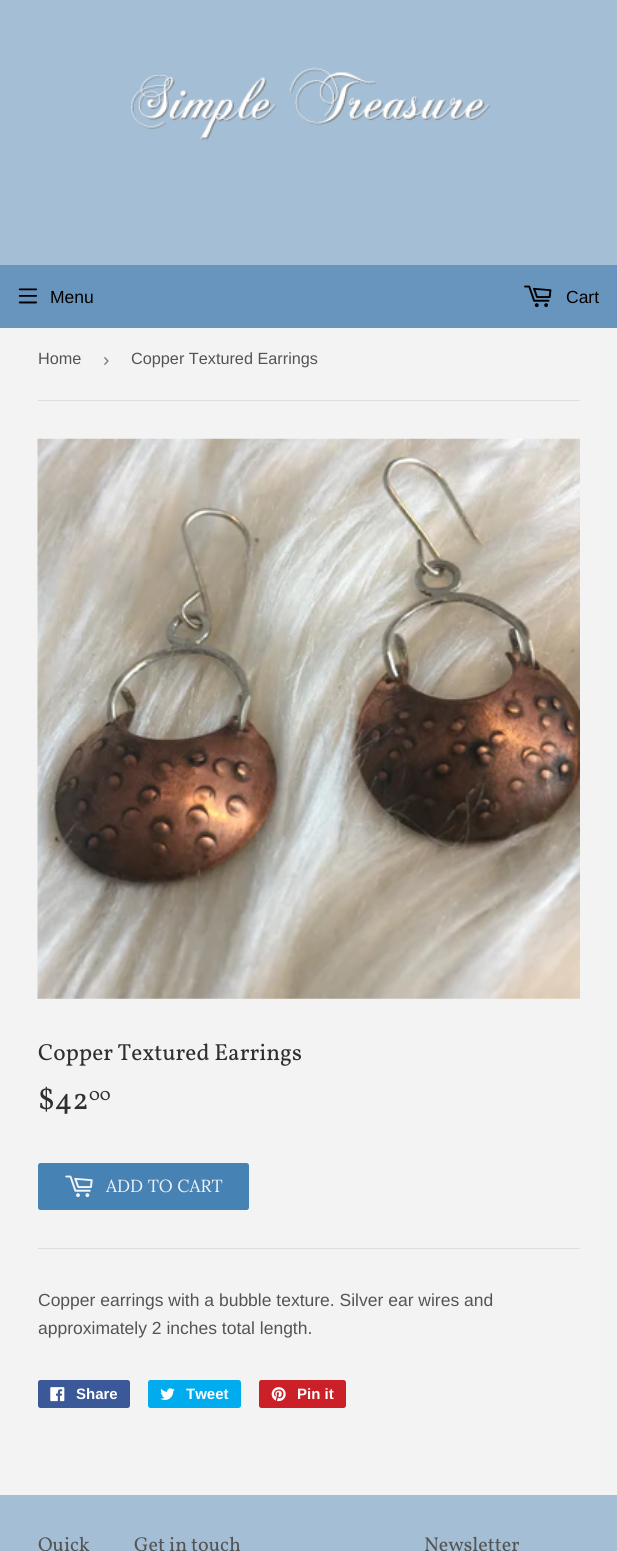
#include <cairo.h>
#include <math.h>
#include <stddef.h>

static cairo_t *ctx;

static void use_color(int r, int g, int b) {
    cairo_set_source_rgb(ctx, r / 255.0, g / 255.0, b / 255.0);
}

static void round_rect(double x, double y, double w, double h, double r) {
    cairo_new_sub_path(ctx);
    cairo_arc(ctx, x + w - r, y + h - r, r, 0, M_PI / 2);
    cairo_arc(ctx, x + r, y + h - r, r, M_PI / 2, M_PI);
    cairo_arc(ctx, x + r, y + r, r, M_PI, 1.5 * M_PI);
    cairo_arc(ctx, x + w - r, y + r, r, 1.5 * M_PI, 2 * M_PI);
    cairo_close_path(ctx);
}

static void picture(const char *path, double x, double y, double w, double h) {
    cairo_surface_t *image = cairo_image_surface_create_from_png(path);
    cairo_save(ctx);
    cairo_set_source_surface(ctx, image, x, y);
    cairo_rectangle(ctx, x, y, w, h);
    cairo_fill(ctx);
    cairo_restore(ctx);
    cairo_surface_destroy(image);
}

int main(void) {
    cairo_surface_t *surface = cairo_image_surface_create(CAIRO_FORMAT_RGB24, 617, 1551);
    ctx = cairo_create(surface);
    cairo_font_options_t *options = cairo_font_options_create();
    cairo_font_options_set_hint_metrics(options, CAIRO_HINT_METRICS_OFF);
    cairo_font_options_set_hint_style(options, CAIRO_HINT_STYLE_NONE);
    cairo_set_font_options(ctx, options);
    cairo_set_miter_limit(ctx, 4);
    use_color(243, 243, 243);
    cairo_paint(ctx);
    use_color(164, 190, 213);
    cairo_rectangle(ctx, 0, 0, 617, 265);
    cairo_fill(ctx);
    picture("img1.png", 131, 67, 360, 74);
    use_color(104, 149, 189);
    cairo_rectangle(ctx, 0, 265, 617, 63);
    cairo_fill(ctx);
    picture("img2.png", 18, 288, 20, 16);
    cairo_select_font_face(ctx, "Liberation Sans", CAIRO_FONT_SLANT_NORMAL, CAIRO_FONT_WEIGHT_NORMAL);
    cairo_set_font_size(ctx, 17.5);
    use_color(0, 0, 0);
    cairo_move_to(ctx, 50, 303);
    cairo_show_text(ctx, "Menu");
    picture("img3.png", 524, 285, 28, 23);
    cairo_move_to(ctx, 566, 303);
    cairo_show_text(ctx, "Cart");
    use_color(222, 222, 222);
    cairo_rectangle(ctx, 38, 400, 542, 1);
    cairo_fill(ctx);
    cairo_set_font_size(ctx, 16.25);
    use_color(84, 84, 84);
    cairo_move_to(ctx, 38, 364);
    cairo_show_text(ctx, "Home");
    cairo_set_font_size(ctx, 19);
    use_color(118, 118, 118);
    cairo_move_to(ctx, 103, 366);
    cairo_show_text(ctx, "›");
    cairo_set_font_size(ctx, 16.25);
    use_color(84, 84, 84);
    cairo_move_to(ctx, 131, 364);
    cairo_show_text(ctx, "Copper Textured Earrings");
    picture("img4.png", 37, 438, 543, 561);
    cairo_select_font_face(ctx, "Vollkorn", CAIRO_FONT_SLANT_NORMAL, CAIRO_FONT_WEIGHT_NORMAL);
    cairo_set_font_size(ctx, 23.25);
    use_color(47, 47, 47);
    cairo_move_to(ctx, 38, 1060);
    cairo_show_text(ctx, "Copper Textured Earrings");
    cairo_set_font_size(ctx, 30);
    cairo_move_to(ctx, 38, 1109);
    cairo_show_text(ctx, "$42");
    cairo_set_font_size(ctx, 18);
    cairo_move_to(ctx, 89, 1100);
    cairo_show_text(ctx, "00");
    use_color(70, 130, 180);
    round_rect(38, 1163, 211, 47, 2.5);
    cairo_fill(ctx);
    picture("img5.png", 65, 1175, 28, 23);
    cairo_select_font_face(ctx, "Lora", CAIRO_FONT_SLANT_NORMAL, CAIRO_FONT_WEIGHT_NORMAL);
    cairo_set_font_size(ctx, 17.5);
    use_color(243, 243, 243);
    cairo_move_to(ctx, 106, 1192);
    cairo_show_text(ctx, "ADD TO CART");
    use_color(222, 222, 222);
    cairo_rectangle(ctx, 38, 1248, 542, 1);
    cairo_fill(ctx);
    cairo_select_font_face(ctx, "Liberation Sans", CAIRO_FONT_SLANT_NORMAL, CAIRO_FONT_WEIGHT_NORMAL);
    use_color(84, 84, 84);
    cairo_move_to(ctx, 38, 1306);
    cairo_show_text(ctx, "Copper earrings with a bubble texture. Silver ear wires and");
    cairo_move_to(ctx, 38, 1334);
    cairo_show_text(ctx, "approximately 2 inches total length.");
    use_color(59, 89, 152);
    round_rect(38, 1380, 92, 28, 2.5);
    cairo_fill(ctx);
    picture("img6.png", 50, 1387, 15, 15);
    cairo_select_font_face(ctx, "Liberation Sans", CAIRO_FONT_SLANT_NORMAL, CAIRO_FONT_WEIGHT_BOLD);
    cairo_set_font_size(ctx, 15);
    use_color(255, 255, 255);
    cairo_move_to(ctx, 76, 1399);
    cairo_show_text(ctx, "Share");
    use_color(0, 172, 237);
    round_rect(148, 1380, 93, 28, 2.5);
    cairo_fill(ctx);
    picture("img7.png", 160, 1388, 15, 12);
    use_color(255, 255, 255);
    cairo_move_to(ctx, 186, 1399);
    cairo_show_text(ctx, "Tweet");
    use_color(203, 32, 39);
    round_rect(259, 1380, 87, 28, 2.5);
    cairo_fill(ctx);
    picture("img8.png", 271, 1387, 15, 15);
    use_color(255, 255, 255);
    cairo_move_to(ctx, 297, 1399);
    cairo_show_text(ctx, "Pin it");
    use_color(164, 190, 213);
    cairo_rectangle(ctx, 0, 1495, 617, 56);
    cairo_fill(ctx);
    cairo_select_font_face(ctx, "Vollkorn", CAIRO_FONT_SLANT_NORMAL, CAIRO_FONT_WEIGHT_NORMAL);
    cairo_set_font_size(ctx, 20);
    use_color(84, 84, 84);
    cairo_move_to(ctx, 38, 1551);
    cairo_show_text(ctx, "Quick");
    cairo_move_to(ctx, 134, 1551);
    cairo_show_text(ctx, "Get in touch");
    cairo_move_to(ctx, 424, 1551);
    cairo_show_text(ctx, "Newsletter");
    cairo_surface_write_to_png(surface, "result.png");
    cairo_font_options_destroy(options);
    cairo_destroy(ctx);
    cairo_surface_destroy(surface);
    return 0;
}
